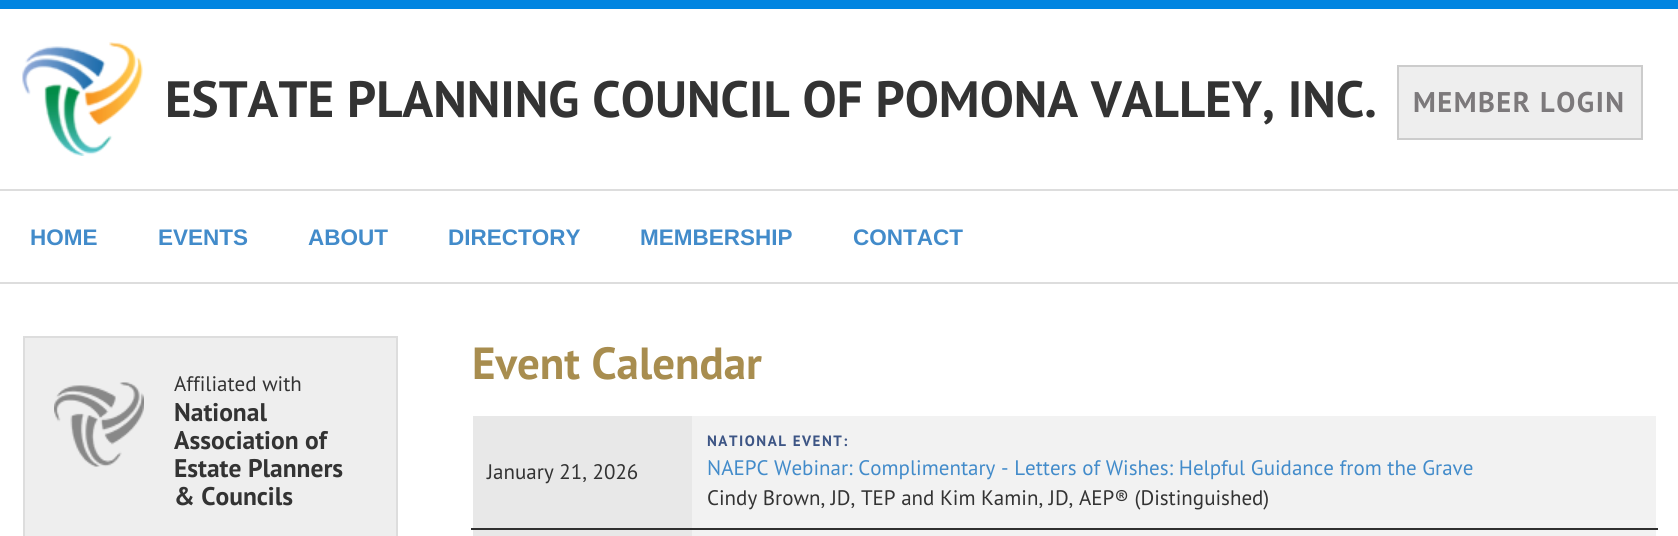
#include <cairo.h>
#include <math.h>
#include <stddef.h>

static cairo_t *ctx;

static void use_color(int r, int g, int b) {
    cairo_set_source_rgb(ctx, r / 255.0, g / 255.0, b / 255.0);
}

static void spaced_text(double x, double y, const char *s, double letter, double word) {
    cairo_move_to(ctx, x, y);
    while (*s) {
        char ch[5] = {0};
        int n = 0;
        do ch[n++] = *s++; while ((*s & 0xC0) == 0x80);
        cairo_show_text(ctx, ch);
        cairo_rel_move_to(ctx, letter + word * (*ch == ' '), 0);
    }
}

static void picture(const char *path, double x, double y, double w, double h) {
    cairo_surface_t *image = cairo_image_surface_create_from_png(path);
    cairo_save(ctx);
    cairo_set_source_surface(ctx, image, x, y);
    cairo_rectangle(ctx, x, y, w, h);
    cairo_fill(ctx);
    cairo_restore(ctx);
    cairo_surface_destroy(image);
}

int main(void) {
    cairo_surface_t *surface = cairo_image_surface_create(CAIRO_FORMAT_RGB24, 1678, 536);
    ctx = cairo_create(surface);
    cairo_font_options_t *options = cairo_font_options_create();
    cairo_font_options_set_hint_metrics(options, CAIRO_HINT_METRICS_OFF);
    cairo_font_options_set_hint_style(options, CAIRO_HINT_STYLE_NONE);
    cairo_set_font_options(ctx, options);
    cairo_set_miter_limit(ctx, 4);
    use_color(255, 255, 255);
    cairo_paint(ctx);
    use_color(1, 133, 225);
    cairo_rectangle(ctx, 0, 0, 1678, 9);
    cairo_fill(ctx);
    use_color(221, 221, 221);
    cairo_rectangle(ctx, 0, 189, 1678, 2);
    cairo_fill(ctx);
    picture("img1.png", 22, 42, 121, 114);
    cairo_select_font_face(ctx, "PT Sans", CAIRO_FONT_SLANT_NORMAL, CAIRO_FONT_WEIGHT_BOLD);
    cairo_set_font_size(ctx, 51);
    use_color(51, 51, 51);
    cairo_move_to(ctx, 165, 117);
    cairo_show_text(ctx, "ESTATE PLANNING COUNCIL OF POMONA VALLEY, INC.");
    use_color(238, 238, 238);
    cairo_rectangle(ctx, 1398, 66, 244, 73);
    cairo_fill_preserve(ctx);
    use_color(204, 204, 204);
    cairo_stroke(ctx);
    cairo_set_font_size(ctx, 28.5);
    use_color(124, 121, 123);
    spaced_text(1413, 112, "MEMBER LOGIN", 1.5, 0);
    use_color(221, 221, 221);
    cairo_rectangle(ctx, 0, 282, 1678, 2);
    cairo_fill(ctx);
    cairo_select_font_face(ctx, "Liberation Sans", CAIRO_FONT_SLANT_NORMAL, CAIRO_FONT_WEIGHT_BOLD);
    cairo_set_font_size(ctx, 22.5);
    use_color(66, 139, 202);
    cairo_move_to(ctx, 30, 245);
    cairo_show_text(ctx, "HOME");
    cairo_move_to(ctx, 158, 245);
    cairo_show_text(ctx, "EVENTS");
    cairo_move_to(ctx, 308, 245);
    cairo_show_text(ctx, "ABOUT");
    cairo_move_to(ctx, 448, 245);
    cairo_show_text(ctx, "DIRECTORY");
    cairo_move_to(ctx, 640, 245);
    cairo_show_text(ctx, "MEMBERSHIP");
    cairo_move_to(ctx, 853, 245);
    cairo_show_text(ctx, "CONTACT");
    use_color(238, 238, 238);
    cairo_rectangle(ctx, 24, 337, 373, 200);
    cairo_fill_preserve(ctx);
    use_color(221, 221, 221);
    cairo_stroke(ctx);
    picture("img2.png", 54, 382, 90, 85);
    cairo_select_font_face(ctx, "PT Sans", CAIRO_FONT_SLANT_NORMAL, CAIRO_FONT_WEIGHT_NORMAL);
    cairo_set_font_size(ctx, 21);
    use_color(51, 51, 51);
    cairo_move_to(ctx, 174, 391);
    cairo_show_text(ctx, "Affiliated with");
    cairo_select_font_face(ctx, "PT Sans", CAIRO_FONT_SLANT_NORMAL, CAIRO_FONT_WEIGHT_BOLD);
    cairo_set_font_size(ctx, 25.5);
    cairo_move_to(ctx, 174, 421);
    cairo_show_text(ctx, "National");
    cairo_move_to(ctx, 174, 449);
    cairo_show_text(ctx, "Association of");
    cairo_move_to(ctx, 174, 477);
    cairo_show_text(ctx, "Estate Planners");
    cairo_move_to(ctx, 174, 505);
    cairo_show_text(ctx, "& Councils");
    cairo_set_font_size(ctx, 45);
    use_color(168, 141, 79);
    cairo_move_to(ctx, 472, 379);
    cairo_show_text(ctx, "Event Calendar");
    use_color(48, 48, 48);
    cairo_rectangle(ctx, 471, 528, 1187, 2);
    cairo_fill(ctx);
    use_color(232, 232, 232);
    cairo_rectangle(ctx, 473, 416, 219, 112);
    cairo_fill(ctx);
    cairo_select_font_face(ctx, "PT Sans", CAIRO_FONT_SLANT_NORMAL, CAIRO_FONT_WEIGHT_NORMAL);
    cairo_set_font_size(ctx, 21);
    use_color(51, 51, 51);
    cairo_move_to(ctx, 487, 479);
    cairo_show_text(ctx, "January 21, 2026");
    use_color(242, 242, 242);
    cairo_rectangle(ctx, 692, 416, 964, 112);
    cairo_fill(ctx);
    cairo_select_font_face(ctx, "PT Sans", CAIRO_FONT_SLANT_NORMAL, CAIRO_FONT_WEIGHT_BOLD);
    cairo_set_font_size(ctx, 15);
    use_color(61, 85, 133);
    spaced_text(707, 446, "NATIONAL EVENT:", 1.5, 0);
    cairo_select_font_face(ctx, "PT Sans", CAIRO_FONT_SLANT_NORMAL, CAIRO_FONT_WEIGHT_NORMAL);
    cairo_set_font_size(ctx, 21);
    use_color(66, 139, 202);
    cairo_move_to(ctx, 707, 475);
    cairo_show_text(ctx, "NAEPC Webinar: Complimentary - Letters of Wishes: Helpful Guidance from the Grave");
    use_color(51, 51, 51);
    cairo_move_to(ctx, 707, 505);
    cairo_show_text(ctx, "Cindy Brown, JD, TEP and Kim Kamin, JD, AEP® (Distinguished)");
    use_color(232, 232, 232);
    cairo_rectangle(ctx, 473, 530, 219, 6);
    cairo_fill(ctx);
    use_color(242, 242, 242);
    cairo_rectangle(ctx, 692, 530, 964, 6);
    cairo_fill(ctx);
    cairo_surface_write_to_png(surface, "result.png");
    cairo_font_options_destroy(options);
    cairo_destroy(ctx);
    cairo_surface_destroy(surface);
    return 0;
}
